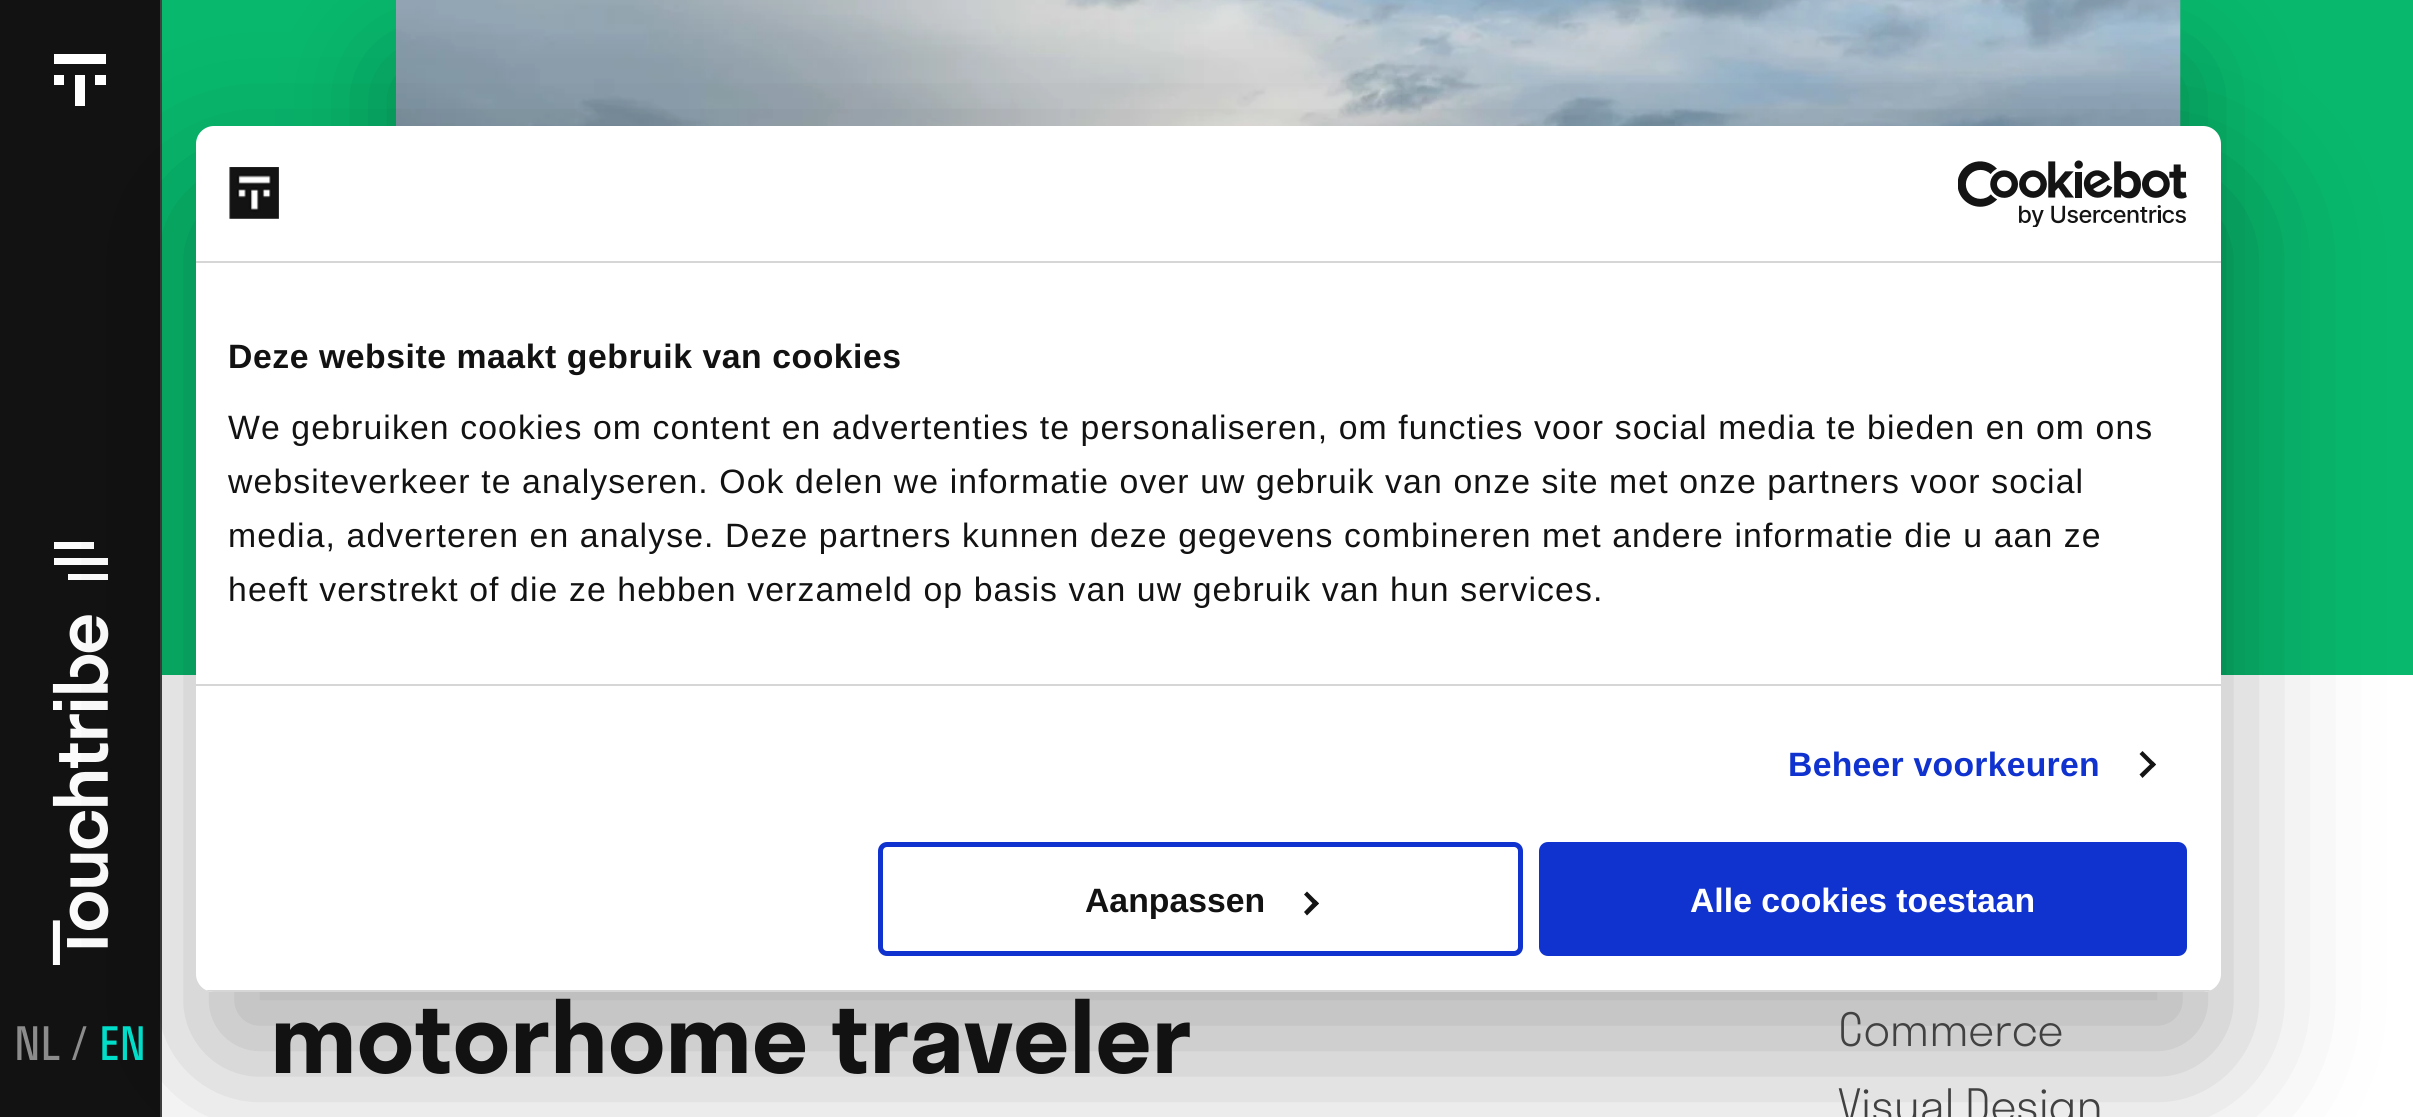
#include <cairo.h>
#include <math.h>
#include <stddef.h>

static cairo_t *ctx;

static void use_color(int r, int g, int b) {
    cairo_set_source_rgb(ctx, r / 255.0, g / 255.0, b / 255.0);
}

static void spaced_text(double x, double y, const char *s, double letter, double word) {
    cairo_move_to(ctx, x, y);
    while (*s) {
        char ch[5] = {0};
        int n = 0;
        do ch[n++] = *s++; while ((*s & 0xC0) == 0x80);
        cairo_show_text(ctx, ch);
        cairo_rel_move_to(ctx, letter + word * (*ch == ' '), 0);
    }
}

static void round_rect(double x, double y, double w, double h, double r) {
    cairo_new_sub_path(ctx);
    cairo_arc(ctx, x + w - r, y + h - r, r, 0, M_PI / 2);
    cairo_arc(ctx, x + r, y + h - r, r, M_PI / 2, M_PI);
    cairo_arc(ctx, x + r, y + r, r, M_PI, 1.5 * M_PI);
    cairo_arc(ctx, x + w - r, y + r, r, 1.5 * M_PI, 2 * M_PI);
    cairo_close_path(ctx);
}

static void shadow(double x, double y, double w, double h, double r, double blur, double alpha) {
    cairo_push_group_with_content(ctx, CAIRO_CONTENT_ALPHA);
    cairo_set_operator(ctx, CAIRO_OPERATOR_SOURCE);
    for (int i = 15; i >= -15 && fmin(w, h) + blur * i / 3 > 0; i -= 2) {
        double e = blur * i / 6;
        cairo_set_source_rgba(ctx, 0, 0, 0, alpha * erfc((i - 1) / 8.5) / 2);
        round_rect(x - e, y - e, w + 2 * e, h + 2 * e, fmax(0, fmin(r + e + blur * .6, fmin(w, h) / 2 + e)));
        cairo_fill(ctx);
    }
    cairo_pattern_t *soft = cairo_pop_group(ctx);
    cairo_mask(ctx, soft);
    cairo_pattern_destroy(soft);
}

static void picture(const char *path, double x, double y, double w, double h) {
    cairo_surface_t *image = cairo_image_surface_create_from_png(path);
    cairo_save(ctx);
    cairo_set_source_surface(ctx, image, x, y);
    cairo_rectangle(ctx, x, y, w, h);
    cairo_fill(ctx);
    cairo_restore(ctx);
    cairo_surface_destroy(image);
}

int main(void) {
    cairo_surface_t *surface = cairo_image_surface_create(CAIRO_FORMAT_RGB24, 2413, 1117);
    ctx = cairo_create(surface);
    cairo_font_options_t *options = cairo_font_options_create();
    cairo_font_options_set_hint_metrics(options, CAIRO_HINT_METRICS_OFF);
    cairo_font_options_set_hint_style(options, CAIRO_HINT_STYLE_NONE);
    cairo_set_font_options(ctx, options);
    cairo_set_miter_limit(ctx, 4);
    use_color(255, 255, 255);
    cairo_paint(ctx);
    use_color(18, 18, 18);
    cairo_rectangle(ctx, 0, 0, 160, 1117);
    cairo_fill(ctx);
    use_color(65, 65, 65);
    cairo_rectangle(ctx, 160, 0, 2, 1117);
    cairo_fill(ctx);
    use_color(255, 255, 255);
    cairo_set_fill_rule(ctx, CAIRO_FILL_RULE_EVEN_ODD);
    cairo_new_path(ctx);
    cairo_move_to(ctx, 85, 75);
    cairo_line_to(ctx, 85, 106);
    cairo_line_to(ctx, 75, 106);
    cairo_line_to(ctx, 75, 75);
    cairo_close_path(ctx);
    cairo_move_to(ctx, 64, 75);
    cairo_line_to(ctx, 64, 85);
    cairo_line_to(ctx, 54, 85);
    cairo_line_to(ctx, 54, 75);
    cairo_close_path(ctx);
    cairo_move_to(ctx, 106, 75);
    cairo_line_to(ctx, 106, 85);
    cairo_line_to(ctx, 95, 85);
    cairo_line_to(ctx, 95, 75);
    cairo_close_path(ctx);
    cairo_move_to(ctx, 106, 54);
    cairo_line_to(ctx, 106, 64);
    cairo_line_to(ctx, 54, 64);
    cairo_line_to(ctx, 54, 54);
    cairo_close_path(ctx);
    cairo_fill(ctx);
    cairo_new_path(ctx);
    cairo_move_to(ctx, 108, 574);
    cairo_line_to(ctx, 108, 580);
    cairo_line_to(ctx, 68, 580);
    cairo_line_to(ctx, 68, 574);
    cairo_close_path(ctx);
    cairo_move_to(ctx, 108, 558);
    cairo_line_to(ctx, 108, 565);
    cairo_line_to(ctx, 54, 565);
    cairo_line_to(ctx, 54, 558);
    cairo_close_path(ctx);
    cairo_move_to(ctx, 94, 542);
    cairo_line_to(ctx, 94, 549);
    cairo_line_to(ctx, 54, 549);
    cairo_line_to(ctx, 54, 542);
    cairo_close_path(ctx);
    cairo_fill(ctx);
    picture("img3.png", 52, 615, 57, 350);
    use_color(8, 184, 108);
    cairo_rectangle(ctx, 162, 0, 2251, 675);
    cairo_fill(ctx);
    cairo_save(ctx);
    cairo_set_fill_rule(ctx, CAIRO_FILL_RULE_WINDING);
    cairo_rectangle(ctx, 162, 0, 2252, 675);
    cairo_clip(ctx);
    use_color(0, 0, 0);
    shadow(396, 68, 1784, 675, 0, 56, 0.25);
    cairo_restore(ctx);
    picture("img4.png", 396, 0, 1785, 126);
    use_color(0, 0, 0);
    shadow(196, 198, 2025, 866, 18, 76.5, 0.3);
    use_color(255, 255, 255);
    round_rect(196, 126, 2025, 866, 18);
    cairo_fill(ctx);
    use_color(214, 214, 214);
    cairo_rectangle(ctx, 196, 261, 2025, 2);
    cairo_fill(ctx);
    picture("img1.png", 229, 167, 50, 52);
    picture("img2.png", 1958, 160, 229, 67);
    cairo_rectangle(ctx, 196, 684, 2025, 2);
    cairo_fill(ctx);
    cairo_select_font_face(ctx, "Liberation Sans", CAIRO_FONT_SLANT_NORMAL, CAIRO_FONT_WEIGHT_BOLD);
    cairo_set_font_size(ctx, 33.75);
    use_color(18, 18, 18);
    spaced_text(228, 368, "Deze website maakt gebruik van cookies", 0.55, 0);
    cairo_select_font_face(ctx, "Liberation Sans", CAIRO_FONT_SLANT_NORMAL, CAIRO_FONT_WEIGHT_NORMAL);
    spaced_text(228, 439, "We gebruiken cookies om content en advertenties te personaliseren, om functies voor social media te bieden en om ons", 1.12, 0);
    spaced_text(228, 493, "websiteverkeer te analyseren. Ook delen we informatie over uw gebruik van onze site met onze partners voor social", 1.12, 0);
    spaced_text(228, 547, "media, adverteren en analyse. Deze partners kunnen deze gegevens combineren met andere informatie die u aan ze", 1.12, 0);
    spaced_text(228, 601, "heeft verstrekt of die ze hebben verzameld op basis van uw gebruik van hun services.", 1.12, 0);
    cairo_select_font_face(ctx, "Liberation Sans", CAIRO_FONT_SLANT_NORMAL, CAIRO_FONT_WEIGHT_BOLD);
    use_color(16, 50, 207);
    spaced_text(1788, 776, "Beheer voorkeuren", 0.25, 0);
    use_color(20, 20, 20);
    cairo_set_fill_rule(ctx, CAIRO_FILL_RULE_WINDING);
    cairo_new_path(ctx);
    cairo_move_to(ctx, 2142.5, 751);
    cairo_line_to(ctx, 2156, 764.5);
    cairo_line_to(ctx, 2153, 767.5);
    cairo_line_to(ctx, 2139.5, 754);
    cairo_close_path(ctx);
    cairo_fill(ctx);
    cairo_new_path(ctx);
    cairo_move_to(ctx, 2153, 761.5);
    cairo_line_to(ctx, 2156, 764.5);
    cairo_line_to(ctx, 2142.5, 778);
    cairo_line_to(ctx, 2139.5, 774.5);
    cairo_close_path(ctx);
    cairo_fill(ctx);
    cairo_save(ctx);
    round_rect(196, 126, 2025, 866, 18);
    cairo_clip(ctx);
    use_color(214, 214, 214);
    cairo_rectangle(ctx, 206, 990, 2005, 2);
    cairo_fill(ctx);
    cairo_restore(ctx);
    round_rect(880.5, 844.5, 640, 109, 6.5);
    use_color(16, 50, 207);
    cairo_set_line_width(ctx, 5);
    cairo_stroke(ctx);
    use_color(18, 18, 18);
    cairo_move_to(ctx, 1085, 912);
    cairo_show_text(ctx, "Aanpassen");
    use_color(20, 20, 20);
    cairo_new_path(ctx);
    cairo_move_to(ctx, 1307, 891.5);
    cairo_line_to(ctx, 1319, 903.5);
    cairo_line_to(ctx, 1315.5, 906.5);
    cairo_line_to(ctx, 1304, 894.5);
    cairo_close_path(ctx);
    cairo_fill(ctx);
    cairo_new_path(ctx);
    cairo_move_to(ctx, 1315.5, 900);
    cairo_line_to(ctx, 1319, 903.5);
    cairo_line_to(ctx, 1307, 915.5);
    cairo_line_to(ctx, 1304, 912);
    cairo_close_path(ctx);
    cairo_fill(ctx);
    use_color(16, 50, 207);
    round_rect(1541.5, 844.5, 643, 109, 6.5);
    cairo_fill_preserve(ctx);
    cairo_stroke(ctx);
    use_color(255, 255, 255);
    cairo_move_to(ctx, 1690, 912);
    cairo_show_text(ctx, "Alle cookies toestaan");
    cairo_select_font_face(ctx, "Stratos", CAIRO_FONT_SLANT_NORMAL, CAIRO_FONT_WEIGHT_NORMAL);
    cairo_set_font_size(ctx, 45);
    use_color(140, 140, 140);
    cairo_move_to(ctx, 14, 1060);
    cairo_show_text(ctx, "NL /");
    use_color(0, 222, 202);
    cairo_move_to(ctx, 99, 1060);
    cairo_show_text(ctx, "EN");
    cairo_select_font_face(ctx, "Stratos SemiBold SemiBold", CAIRO_FONT_SLANT_NORMAL, CAIRO_FONT_WEIGHT_NORMAL);
    cairo_set_font_size(ctx, 99);
    use_color(18, 18, 18);
    cairo_move_to(ctx, 270, 1073);
    cairo_show_text(ctx, "motorhome traveler");
    cairo_select_font_face(ctx, "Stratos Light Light", CAIRO_FONT_SLANT_NORMAL, CAIRO_FONT_WEIGHT_NORMAL);
    cairo_set_font_size(ctx, 45);
    use_color(65, 65, 65);
    cairo_move_to(ctx, 1838, 1046);
    cairo_show_text(ctx, "Commerce");
    cairo_move_to(ctx, 1838, 1122);
    cairo_show_text(ctx, "Visual Design");
    cairo_surface_write_to_png(surface, "result.png");
    cairo_font_options_destroy(options);
    cairo_destroy(ctx);
    cairo_surface_destroy(surface);
    return 0;
}
